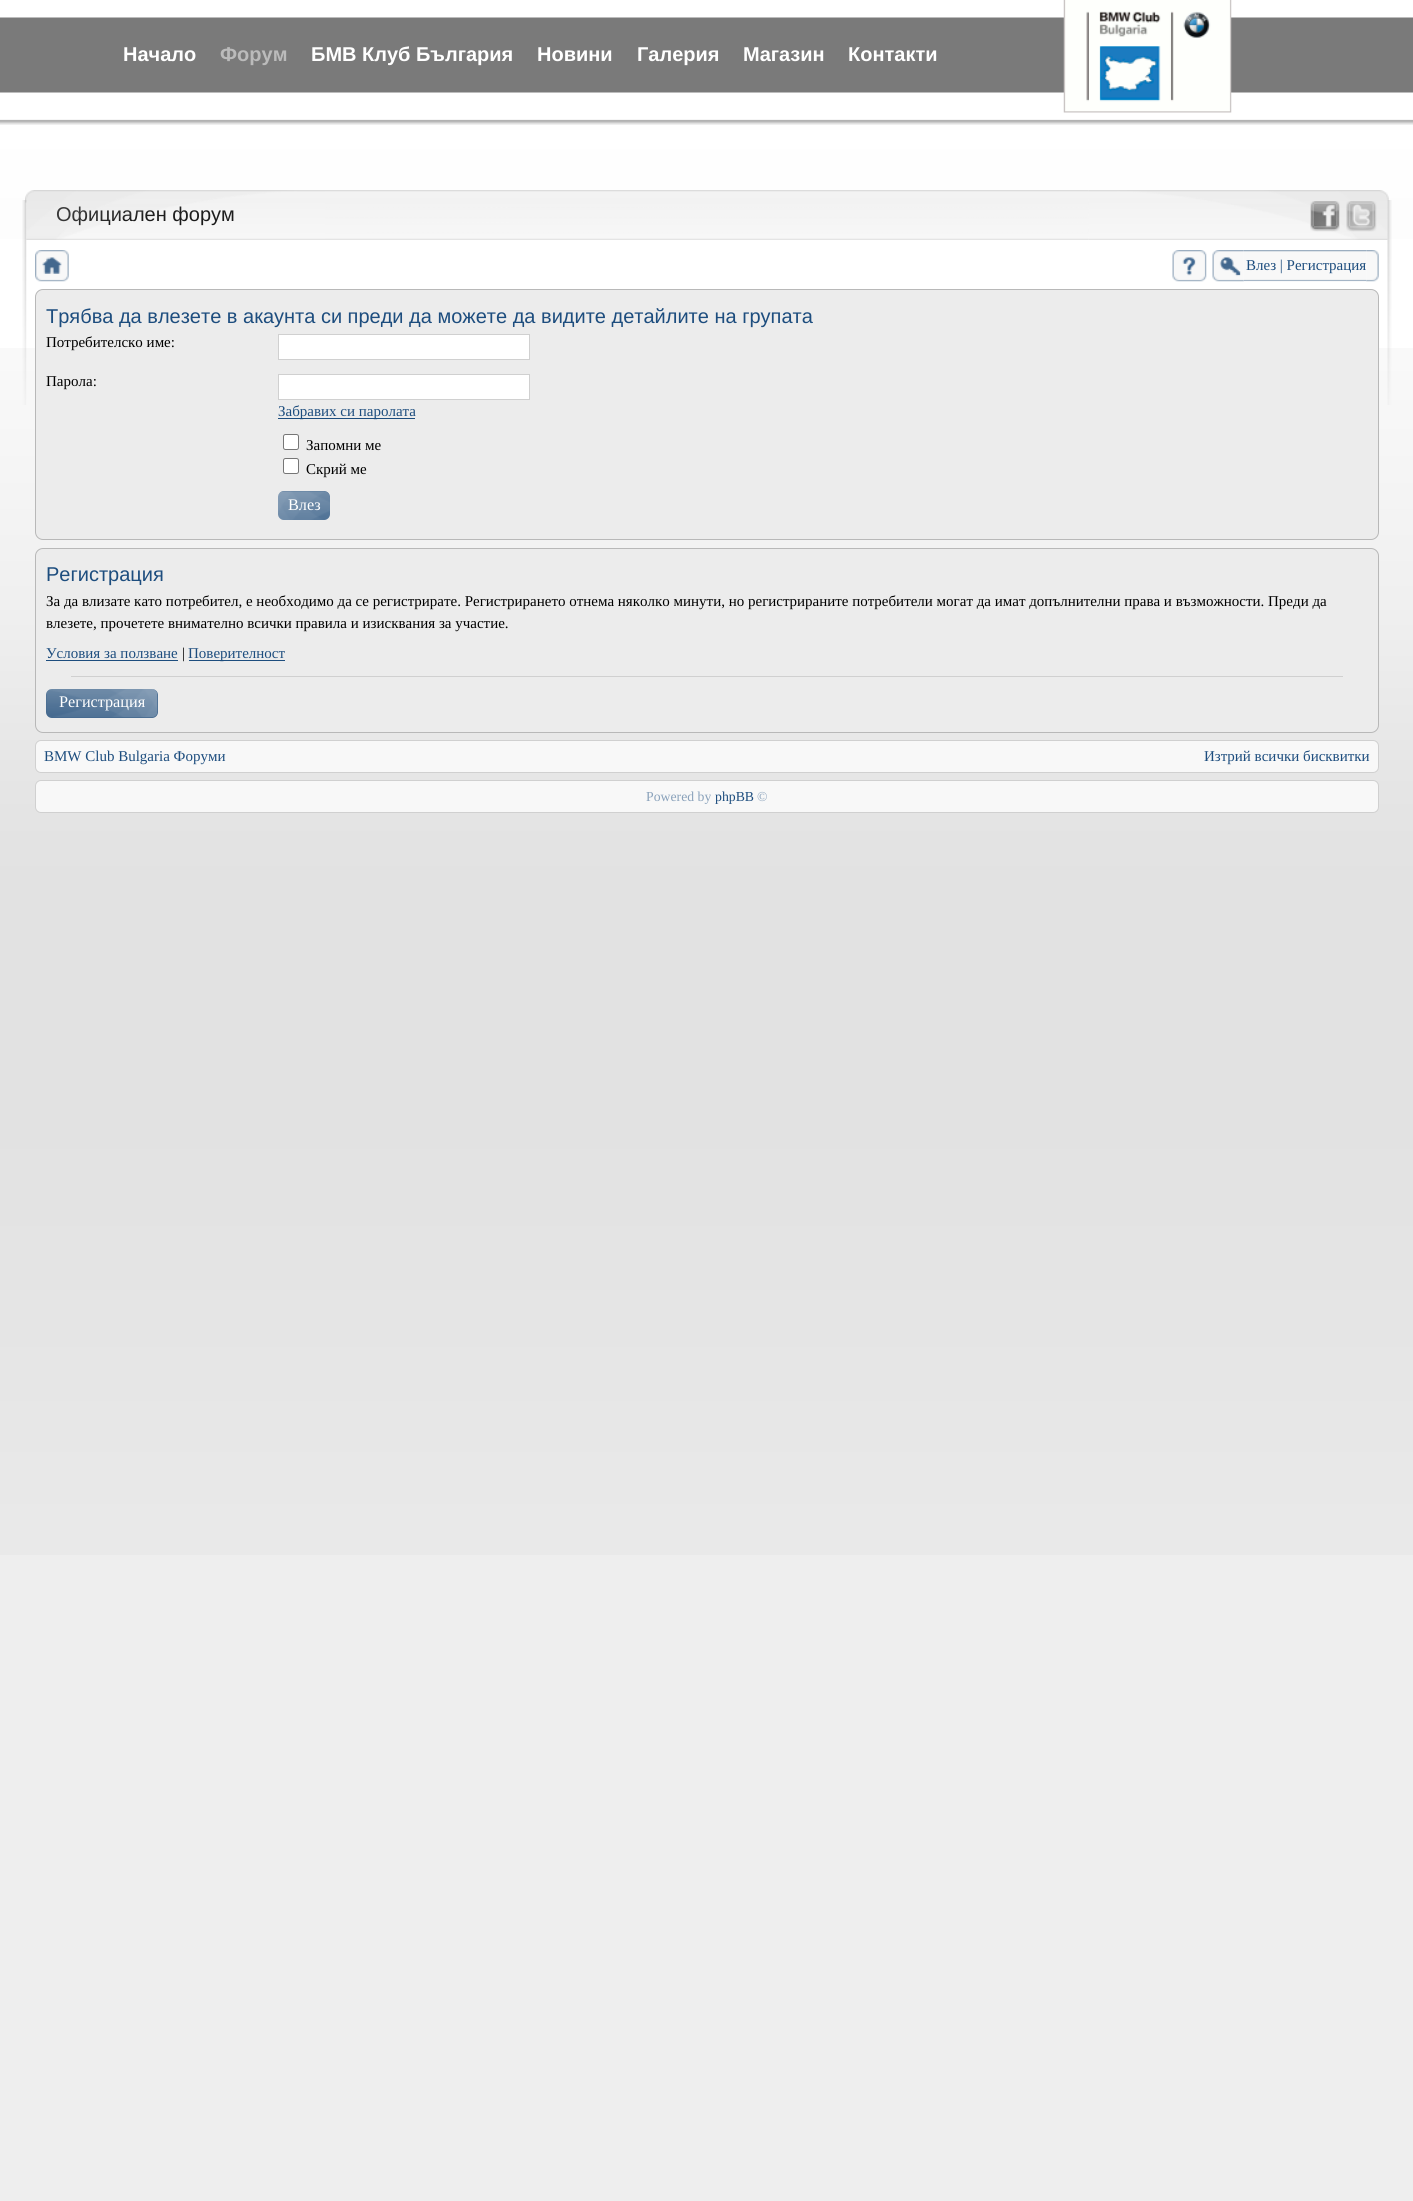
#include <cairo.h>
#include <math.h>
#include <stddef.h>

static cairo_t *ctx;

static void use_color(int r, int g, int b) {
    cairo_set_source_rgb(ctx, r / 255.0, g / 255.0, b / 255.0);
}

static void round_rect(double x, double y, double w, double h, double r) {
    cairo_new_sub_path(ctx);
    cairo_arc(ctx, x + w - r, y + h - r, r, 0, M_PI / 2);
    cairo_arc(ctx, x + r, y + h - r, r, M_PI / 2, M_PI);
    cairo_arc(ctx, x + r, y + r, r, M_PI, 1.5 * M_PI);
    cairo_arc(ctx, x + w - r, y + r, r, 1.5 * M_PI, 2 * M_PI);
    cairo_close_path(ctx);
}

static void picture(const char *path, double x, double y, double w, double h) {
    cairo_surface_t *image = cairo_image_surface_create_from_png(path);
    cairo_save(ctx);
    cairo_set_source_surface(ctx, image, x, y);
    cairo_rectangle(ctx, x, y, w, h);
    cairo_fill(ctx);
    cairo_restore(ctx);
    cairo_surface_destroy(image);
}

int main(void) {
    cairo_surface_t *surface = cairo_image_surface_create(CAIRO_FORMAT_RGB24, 1413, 2201);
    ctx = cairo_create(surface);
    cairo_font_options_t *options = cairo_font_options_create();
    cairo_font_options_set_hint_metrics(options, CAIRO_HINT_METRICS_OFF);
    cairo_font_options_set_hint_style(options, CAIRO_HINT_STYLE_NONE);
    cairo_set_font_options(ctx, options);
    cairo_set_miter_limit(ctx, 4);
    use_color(238, 238, 238);
    cairo_paint(ctx);
    picture("img1.png", 0, 0, 1413, 1555);
    picture("img2.png", 0, 17, 1413, 108);
    cairo_select_font_face(ctx, "Liberation Sans", CAIRO_FONT_SLANT_NORMAL, CAIRO_FONT_WEIGHT_BOLD);
    cairo_set_font_size(ctx, 20);
    use_color(255, 255, 255);
    cairo_move_to(ctx, 123, 61);
    cairo_show_text(ctx, "Начало");
    use_color(187, 187, 187);
    cairo_move_to(ctx, 220, 61);
    cairo_show_text(ctx, "Форум");
    use_color(255, 255, 255);
    cairo_move_to(ctx, 311, 61);
    cairo_show_text(ctx, "БМВ Клуб България");
    cairo_move_to(ctx, 537, 61);
    cairo_show_text(ctx, "Новини");
    cairo_move_to(ctx, 637, 61);
    cairo_show_text(ctx, "Галерия");
    cairo_move_to(ctx, 743, 61);
    cairo_show_text(ctx, "Магазин");
    cairo_move_to(ctx, 848, 61);
    cairo_show_text(ctx, "Контакти");
    picture("img3.png", 1063, 0, 169, 113);
    cairo_rectangle(ctx, 0, 239, 1413, 109);
    cairo_fill(ctx);
    picture("img4.png", 22, 200, 5, 205);
    picture("img5.png", 1387, 200, 5, 205);
    picture("img6.png", 325, 190, 764, 50);
    cairo_select_font_face(ctx, "Liberation Sans", CAIRO_FONT_SLANT_NORMAL, CAIRO_FONT_WEIGHT_NORMAL);
    use_color(0, 0, 0);
    cairo_move_to(ctx, 56, 221);
    cairo_show_text(ctx, "Официален форум");
    picture("img7.png", 25, 190, 300, 50);
    picture("img9.png", 1310, 201, 30, 31);
    picture("img10.png", 1346, 201, 31, 31);
    picture("img8.png", 1088, 190, 301, 50);
    picture("img11.png", 35, 250, 34, 32);
    picture("img12.png", 1172, 250, 35, 32);
    picture("img13.png", 1243, 250, 124, 32);
    picture("img14.png", 1212, 250, 32, 32);
    cairo_select_font_face(ctx, "Liberation Serif", CAIRO_FONT_SLANT_NORMAL, CAIRO_FONT_WEIGHT_NORMAL);
    cairo_set_font_size(ctx, 15);
    use_color(29, 77, 126);
    cairo_move_to(ctx, 1246, 270);
    cairo_show_text(ctx, "Влез | Регистрация");
    picture("img15.png", 1366, 250, 13, 32);
    use_color(236, 236, 236);
    round_rect(35.5, 289.5, 1343, 250, 7.5);
    cairo_fill_preserve(ctx);
    use_color(184, 184, 184);
    cairo_set_line_width(ctx, 1);
    cairo_stroke(ctx);
    cairo_select_font_face(ctx, "Liberation Sans", CAIRO_FONT_SLANT_NORMAL, CAIRO_FONT_WEIGHT_NORMAL);
    cairo_set_font_size(ctx, 20);
    use_color(29, 77, 126);
    cairo_move_to(ctx, 46, 323);
    cairo_show_text(ctx, "Трябва да влезете в акаунта си преди да можете да видите детайлите на групата");
    cairo_select_font_face(ctx, "Liberation Serif", CAIRO_FONT_SLANT_NORMAL, CAIRO_FONT_WEIGHT_NORMAL);
    cairo_set_font_size(ctx, 15);
    use_color(0, 0, 0);
    cairo_move_to(ctx, 46, 347);
    cairo_show_text(ctx, "Потребителско име:");
    use_color(255, 255, 255);
    cairo_rectangle(ctx, 278.5, 334.5, 251, 25);
    cairo_fill_preserve(ctx);
    use_color(208, 208, 208);
    cairo_stroke(ctx);
    use_color(0, 0, 0);
    cairo_move_to(ctx, 46, 386);
    cairo_show_text(ctx, "Парола:");
    use_color(255, 255, 255);
    cairo_rectangle(ctx, 278.5, 374.5, 251, 25);
    cairo_fill_preserve(ctx);
    use_color(208, 208, 208);
    cairo_stroke(ctx);
    use_color(29, 77, 126);
    cairo_rectangle(ctx, 278, 418, 137, 1);
    cairo_fill(ctx);
    cairo_move_to(ctx, 278, 416);
    cairo_show_text(ctx, "Забравих си паролата");
    use_color(255, 255, 255);
    round_rect(283.5, 434.5, 15, 15, 2);
    cairo_fill_preserve(ctx);
    use_color(118, 118, 118);
    cairo_stroke(ctx);
    use_color(0, 0, 0);
    cairo_move_to(ctx, 306, 450);
    cairo_show_text(ctx, "Запомни ме");
    use_color(255, 255, 255);
    round_rect(283.5, 458.5, 15, 15, 2);
    cairo_fill_preserve(ctx);
    use_color(118, 118, 118);
    cairo_stroke(ctx);
    use_color(0, 0, 0);
    cairo_move_to(ctx, 306, 474);
    cairo_show_text(ctx, "Скрий ме");
    use_color(67, 104, 142);
    round_rect(278, 491, 52, 29, 6);
    cairo_fill(ctx);
    picture("img16.png", 278, 491, 52, 29);
    cairo_set_font_size(ctx, 16.25);
    use_color(255, 255, 255);
    cairo_move_to(ctx, 288, 510);
    cairo_show_text(ctx, "Влез");
    use_color(236, 236, 236);
    round_rect(35.5, 548.5, 1343, 184, 7.5);
    cairo_fill_preserve(ctx);
    use_color(184, 184, 184);
    cairo_stroke(ctx);
    cairo_select_font_face(ctx, "Liberation Sans", CAIRO_FONT_SLANT_NORMAL, CAIRO_FONT_WEIGHT_NORMAL);
    cairo_set_font_size(ctx, 20);
    use_color(29, 77, 126);
    cairo_move_to(ctx, 46, 581);
    cairo_show_text(ctx, "Регистрация");
    cairo_select_font_face(ctx, "Liberation Serif", CAIRO_FONT_SLANT_NORMAL, CAIRO_FONT_WEIGHT_NORMAL);
    cairo_set_font_size(ctx, 15);
    use_color(0, 0, 0);
    cairo_move_to(ctx, 46, 606);
    cairo_show_text(ctx, "За да влизате като потребител, е необходимо да се регистрирате. Регистрирането отнема няколко минути, но регистрираните потребители могат да имат допълнителни права и възможности. Преди да");
    cairo_move_to(ctx, 46, 628);
    cairo_show_text(ctx, "влезете, прочетете внимателно всички правила и изисквания за участие.");
    use_color(29, 77, 126);
    cairo_move_to(ctx, 46, 658);
    cairo_show_text(ctx, "Условия за ползване");
    cairo_rectangle(ctx, 46, 660, 132, 1);
    cairo_fill(ctx);
    use_color(0, 0, 0);
    cairo_move_to(ctx, 182, 658);
    cairo_show_text(ctx, "|");
    use_color(29, 77, 126);
    cairo_rectangle(ctx, 189, 660, 96, 1);
    cairo_fill(ctx);
    cairo_move_to(ctx, 188, 658);
    cairo_show_text(ctx, "Поверителност");
    use_color(208, 208, 208);
    cairo_rectangle(ctx, 71, 676, 1272, 1);
    cairo_fill(ctx);
    use_color(67, 104, 142);
    round_rect(46, 689, 112, 29, 6);
    cairo_fill(ctx);
    picture("img17.png", 46, 689, 112, 29);
    cairo_set_font_size(ctx, 16.25);
    use_color(255, 255, 255);
    cairo_move_to(ctx, 59, 707);
    cairo_show_text(ctx, "Регистрация");
    use_color(248, 248, 248);
    round_rect(35.5, 740.5, 1343, 32, 5.5);
    cairo_fill_preserve(ctx);
    use_color(208, 208, 208);
    cairo_stroke(ctx);
    cairo_set_font_size(ctx, 15);
    use_color(29, 77, 126);
    cairo_move_to(ctx, 44, 761);
    cairo_show_text(ctx, "BMW Club Bulgaria Форуми");
    cairo_move_to(ctx, 1204, 761);
    cairo_show_text(ctx, "Изтрий всички бисквитки");
    use_color(248, 248, 248);
    round_rect(35.5, 780.5, 1343, 32, 5.5);
    cairo_fill_preserve(ctx);
    use_color(208, 208, 208);
    cairo_stroke(ctx);
    cairo_set_font_size(ctx, 13.75);
    use_color(138, 162, 187);
    cairo_move_to(ctx, 646, 801);
    cairo_show_text(ctx, "Powered by");
    use_color(29, 77, 126);
    cairo_move_to(ctx, 715, 801);
    cairo_show_text(ctx, "phpBB");
    use_color(138, 162, 187);
    cairo_move_to(ctx, 757, 801);
    cairo_show_text(ctx, "©");
    cairo_surface_write_to_png(surface, "result.png");
    cairo_font_options_destroy(options);
    cairo_destroy(ctx);
    cairo_surface_destroy(surface);
    return 0;
}
